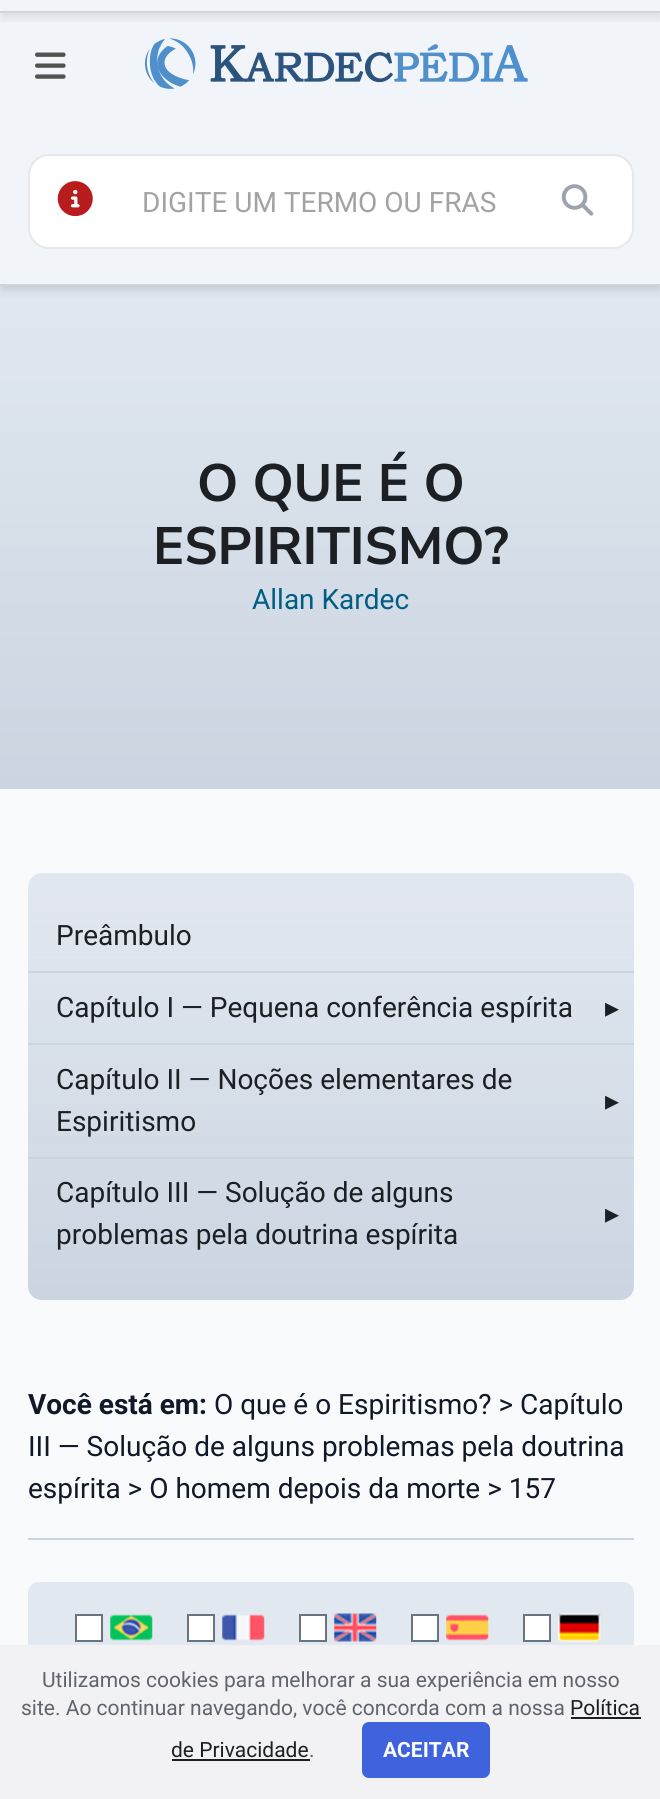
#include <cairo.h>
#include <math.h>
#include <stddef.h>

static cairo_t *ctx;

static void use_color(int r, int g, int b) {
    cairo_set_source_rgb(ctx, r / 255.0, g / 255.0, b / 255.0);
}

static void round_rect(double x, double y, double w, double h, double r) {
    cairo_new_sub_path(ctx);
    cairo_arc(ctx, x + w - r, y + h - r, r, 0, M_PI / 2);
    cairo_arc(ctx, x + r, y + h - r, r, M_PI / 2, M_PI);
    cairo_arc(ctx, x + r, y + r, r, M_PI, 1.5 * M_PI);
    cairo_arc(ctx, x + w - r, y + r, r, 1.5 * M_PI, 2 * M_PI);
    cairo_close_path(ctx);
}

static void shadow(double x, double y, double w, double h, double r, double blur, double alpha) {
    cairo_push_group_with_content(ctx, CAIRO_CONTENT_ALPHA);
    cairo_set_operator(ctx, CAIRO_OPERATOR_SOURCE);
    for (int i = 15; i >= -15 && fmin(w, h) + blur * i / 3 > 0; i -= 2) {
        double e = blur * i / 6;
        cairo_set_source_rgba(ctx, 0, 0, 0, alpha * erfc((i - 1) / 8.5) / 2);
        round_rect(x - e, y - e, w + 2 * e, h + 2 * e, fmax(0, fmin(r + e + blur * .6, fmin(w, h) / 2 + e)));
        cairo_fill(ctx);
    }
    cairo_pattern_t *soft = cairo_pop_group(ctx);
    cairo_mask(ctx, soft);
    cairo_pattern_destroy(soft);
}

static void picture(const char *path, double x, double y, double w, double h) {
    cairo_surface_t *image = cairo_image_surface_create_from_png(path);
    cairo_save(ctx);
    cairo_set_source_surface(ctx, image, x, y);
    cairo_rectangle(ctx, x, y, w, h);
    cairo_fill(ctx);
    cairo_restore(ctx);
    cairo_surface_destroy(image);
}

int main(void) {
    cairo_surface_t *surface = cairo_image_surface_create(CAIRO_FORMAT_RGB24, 660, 1799);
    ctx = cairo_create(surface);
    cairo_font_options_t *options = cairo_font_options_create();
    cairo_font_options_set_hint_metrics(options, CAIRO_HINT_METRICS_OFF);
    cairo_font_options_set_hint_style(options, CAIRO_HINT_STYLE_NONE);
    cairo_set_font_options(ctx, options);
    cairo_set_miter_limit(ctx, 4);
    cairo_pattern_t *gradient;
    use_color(255, 255, 255);
    cairo_paint(ctx);
    gradient = cairo_pattern_create_linear(331, 789, 331, 285);
    cairo_pattern_add_color_stop_rgba(gradient, 0, 0.796, 0.835, 0.882, 1);
    cairo_pattern_add_color_stop_rgba(gradient, 1, 0.882, 0.91, 0.941, 1);
    cairo_set_source(ctx, gradient);
    cairo_pattern_destroy(gradient);
    cairo_rectangle(ctx, 0, 286, 660, 503);
    cairo_fill(ctx);
    use_color(0, 0, 0);
    shadow(4, 7, 654, 278, 0, 3.5, 0.1);
    shadow(2, 9, 658, 282, 0, 5, 0.1);
    use_color(241, 245, 249);
    cairo_rectangle(ctx, 0, 0, 660, 284);
    cairo_fill(ctx);
    cairo_save(ctx);
    cairo_rectangle(ctx, 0, 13, 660, 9);
    cairo_clip(ctx);
    use_color(0, 0, 0);
    shadow(2, -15, 658, 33, 0, 5, 0.1);
    cairo_restore(ctx);
    use_color(209, 213, 219);
    cairo_rectangle(ctx, 0, 11, 660, 2);
    cairo_fill(ctx);
    cairo_rectangle(ctx, 0, 284, 660, 2);
    cairo_fill(ctx);
    picture("img1.png", 35, 52, 31, 27);
    picture("img2.png", 144, 38, 384, 51);
    use_color(255, 255, 255);
    round_rect(29, 155, 604, 93, 20);
    cairo_fill_preserve(ctx);
    use_color(229, 231, 235);
    cairo_stroke(ctx);
    picture("img3.png", 57, 181, 36, 36);
    cairo_select_font_face(ctx, "Roboto", CAIRO_FONT_SLANT_NORMAL, CAIRO_FONT_WEIGHT_NORMAL);
    cairo_set_font_size(ctx, 28);
    use_color(163, 163, 163);
    cairo_move_to(ctx, 142, 212);
    cairo_show_text(ctx, "DIGITE UM TERMO OU FRAS");
    picture("img4.png", 561, 184, 33, 32);
    cairo_select_font_face(ctx, "Nunito Sans", CAIRO_FONT_SLANT_NORMAL, CAIRO_FONT_WEIGHT_BOLD);
    cairo_set_font_size(ctx, 52.5);
    use_color(28, 32, 36);
    cairo_move_to(ctx, 197, 501);
    cairo_show_text(ctx, "O QUE É O");
    cairo_move_to(ctx, 153, 564);
    cairo_show_text(ctx, "ESPIRITISMO?");
    cairo_select_font_face(ctx, "Roboto", CAIRO_FONT_SLANT_NORMAL, CAIRO_FONT_WEIGHT_NORMAL);
    cairo_set_font_size(ctx, 28);
    use_color(0, 94, 132);
    cairo_move_to(ctx, 252, 609);
    cairo_show_text(ctx, "Allan Kardec");
    use_color(248, 250, 252);
    cairo_rectangle(ctx, 0, 789, 660, 856);
    cairo_fill(ctx);
    use_color(226, 232, 240);
    round_rect(28, 873, 606, 427, 14);
    cairo_fill(ctx);
    gradient = cairo_pattern_create_linear(331, 1300, 331, 873);
    cairo_pattern_add_color_stop_rgba(gradient, 0, 0.796, 0.835, 0.882, 1);
    cairo_pattern_add_color_stop_rgba(gradient, 1, 0.796, 0.835, 0.882, 0);
    cairo_set_source(ctx, gradient);
    cairo_pattern_destroy(gradient);
    round_rect(28, 873, 606, 427, 14);
    cairo_fill(ctx);
    use_color(203, 213, 225);
    cairo_rectangle(ctx, 28, 971, 606, 2);
    cairo_fill(ctx);
    use_color(28, 32, 36);
    cairo_move_to(ctx, 56, 945);
    cairo_show_text(ctx, "Preâmbulo");
    use_color(203, 213, 225);
    cairo_rectangle(ctx, 28, 1043, 606, 2);
    cairo_fill(ctx);
    use_color(28, 32, 36);
    cairo_move_to(ctx, 56, 1017);
    cairo_show_text(ctx, "Capítulo I — Pequena conferência espírita");
    cairo_select_font_face(ctx, "DejaVu Sans", CAIRO_FONT_SLANT_NORMAL, CAIRO_FONT_WEIGHT_NORMAL);
    cairo_move_to(ctx, 605, 1017);
    cairo_show_text(ctx, "▸");
    use_color(203, 213, 225);
    cairo_rectangle(ctx, 28, 1157, 606, 2);
    cairo_fill(ctx);
    cairo_select_font_face(ctx, "Roboto", CAIRO_FONT_SLANT_NORMAL, CAIRO_FONT_WEIGHT_NORMAL);
    use_color(28, 32, 36);
    cairo_move_to(ctx, 56, 1089);
    cairo_show_text(ctx, "Capítulo II — Noções elementares de");
    cairo_move_to(ctx, 56, 1131);
    cairo_show_text(ctx, "Espiritismo");
    cairo_select_font_face(ctx, "DejaVu Sans", CAIRO_FONT_SLANT_NORMAL, CAIRO_FONT_WEIGHT_NORMAL);
    cairo_move_to(ctx, 605, 1110);
    cairo_show_text(ctx, "▸");
    cairo_select_font_face(ctx, "Roboto", CAIRO_FONT_SLANT_NORMAL, CAIRO_FONT_WEIGHT_NORMAL);
    cairo_move_to(ctx, 56, 1202);
    cairo_show_text(ctx, "Capítulo III — Solução de alguns");
    cairo_move_to(ctx, 56, 1244);
    cairo_show_text(ctx, "problemas pela doutrina espírita");
    cairo_select_font_face(ctx, "DejaVu Sans", CAIRO_FONT_SLANT_NORMAL, CAIRO_FONT_WEIGHT_NORMAL);
    cairo_move_to(ctx, 605, 1223);
    cairo_show_text(ctx, "▸");
    use_color(203, 213, 225);
    cairo_rectangle(ctx, 28, 1538, 606, 2);
    cairo_fill(ctx);
    cairo_select_font_face(ctx, "Roboto", CAIRO_FONT_SLANT_NORMAL, CAIRO_FONT_WEIGHT_BOLD);
    use_color(17, 24, 39);
    cairo_move_to(ctx, 28, 1414);
    cairo_show_text(ctx, "Você está em:");
    cairo_select_font_face(ctx, "Roboto", CAIRO_FONT_SLANT_NORMAL, CAIRO_FONT_WEIGHT_NORMAL);
    cairo_move_to(ctx, 214, 1414);
    cairo_show_text(ctx, "O que é o Espiritismo? > Capítulo");
    cairo_move_to(ctx, 28, 1456);
    cairo_show_text(ctx, "III — Solução de alguns problemas pela doutrina");
    cairo_move_to(ctx, 28, 1498);
    cairo_show_text(ctx, "espírita > O homem depois da morte > 157");
    use_color(226, 232, 240);
    round_rect(28, 1582, 606, 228, 11);
    cairo_fill(ctx);
    use_color(255, 255, 255);
    cairo_rectangle(ctx, 76, 1615, 26, 26);
    cairo_fill_preserve(ctx);
    use_color(107, 114, 128);
    cairo_stroke(ctx);
    picture("img5.png", 110, 1614, 43, 27);
    use_color(255, 255, 255);
    cairo_rectangle(ctx, 188, 1615, 26, 26);
    cairo_fill_preserve(ctx);
    use_color(107, 114, 128);
    cairo_stroke(ctx);
    picture("img6.png", 222, 1614, 43, 27);
    use_color(255, 255, 255);
    cairo_rectangle(ctx, 300, 1615, 26, 26);
    cairo_fill_preserve(ctx);
    use_color(107, 114, 128);
    cairo_stroke(ctx);
    picture("img7.png", 334, 1613, 43, 29);
    use_color(255, 255, 255);
    cairo_rectangle(ctx, 412, 1615, 26, 26);
    cairo_fill_preserve(ctx);
    use_color(107, 114, 128);
    cairo_stroke(ctx);
    picture("img8.png", 446, 1614, 43, 27);
    use_color(255, 255, 255);
    cairo_rectangle(ctx, 524, 1615, 26, 26);
    cairo_fill_preserve(ctx);
    use_color(107, 114, 128);
    cairo_stroke(ctx);
    picture("img9.png", 558, 1613, 43, 29);
    use_color(242, 242, 245);
    cairo_rectangle(ctx, 0, 1645, 660, 154);
    cairo_fill(ctx);
    cairo_set_font_size(ctx, 21);
    use_color(96, 100, 108);
    cairo_move_to(ctx, 42, 1687);
    cairo_show_text(ctx, "Utilizamos cookies para melhorar a sua experiência em nosso");
    cairo_move_to(ctx, 21, 1715);
    cairo_show_text(ctx, "site. Ao continuar navegando, você concorda com a nossa");
    use_color(28, 32, 36);
    cairo_move_to(ctx, 570, 1715);
    cairo_show_text(ctx, "Política");
    cairo_rectangle(ctx, 571, 1717, 70, 2);
    cairo_fill(ctx);
    cairo_move_to(ctx, 171, 1757);
    cairo_show_text(ctx, "de Privacidade");
    cairo_rectangle(ctx, 172, 1759, 138, 2);
    cairo_fill(ctx);
    use_color(96, 100, 108);
    cairo_move_to(ctx, 309, 1757);
    cairo_show_text(ctx, ".");
    use_color(62, 99, 221);
    round_rect(362, 1722, 128, 56, 7);
    cairo_fill(ctx);
    cairo_select_font_face(ctx, "Roboto", CAIRO_FONT_SLANT_NORMAL, CAIRO_FONT_WEIGHT_BOLD);
    use_color(252, 252, 253);
    cairo_move_to(ctx, 383, 1757);
    cairo_show_text(ctx, "ACEITAR");
    cairo_surface_write_to_png(surface, "result.png");
    cairo_font_options_destroy(options);
    cairo_destroy(ctx);
    cairo_surface_destroy(surface);
    return 0;
}
